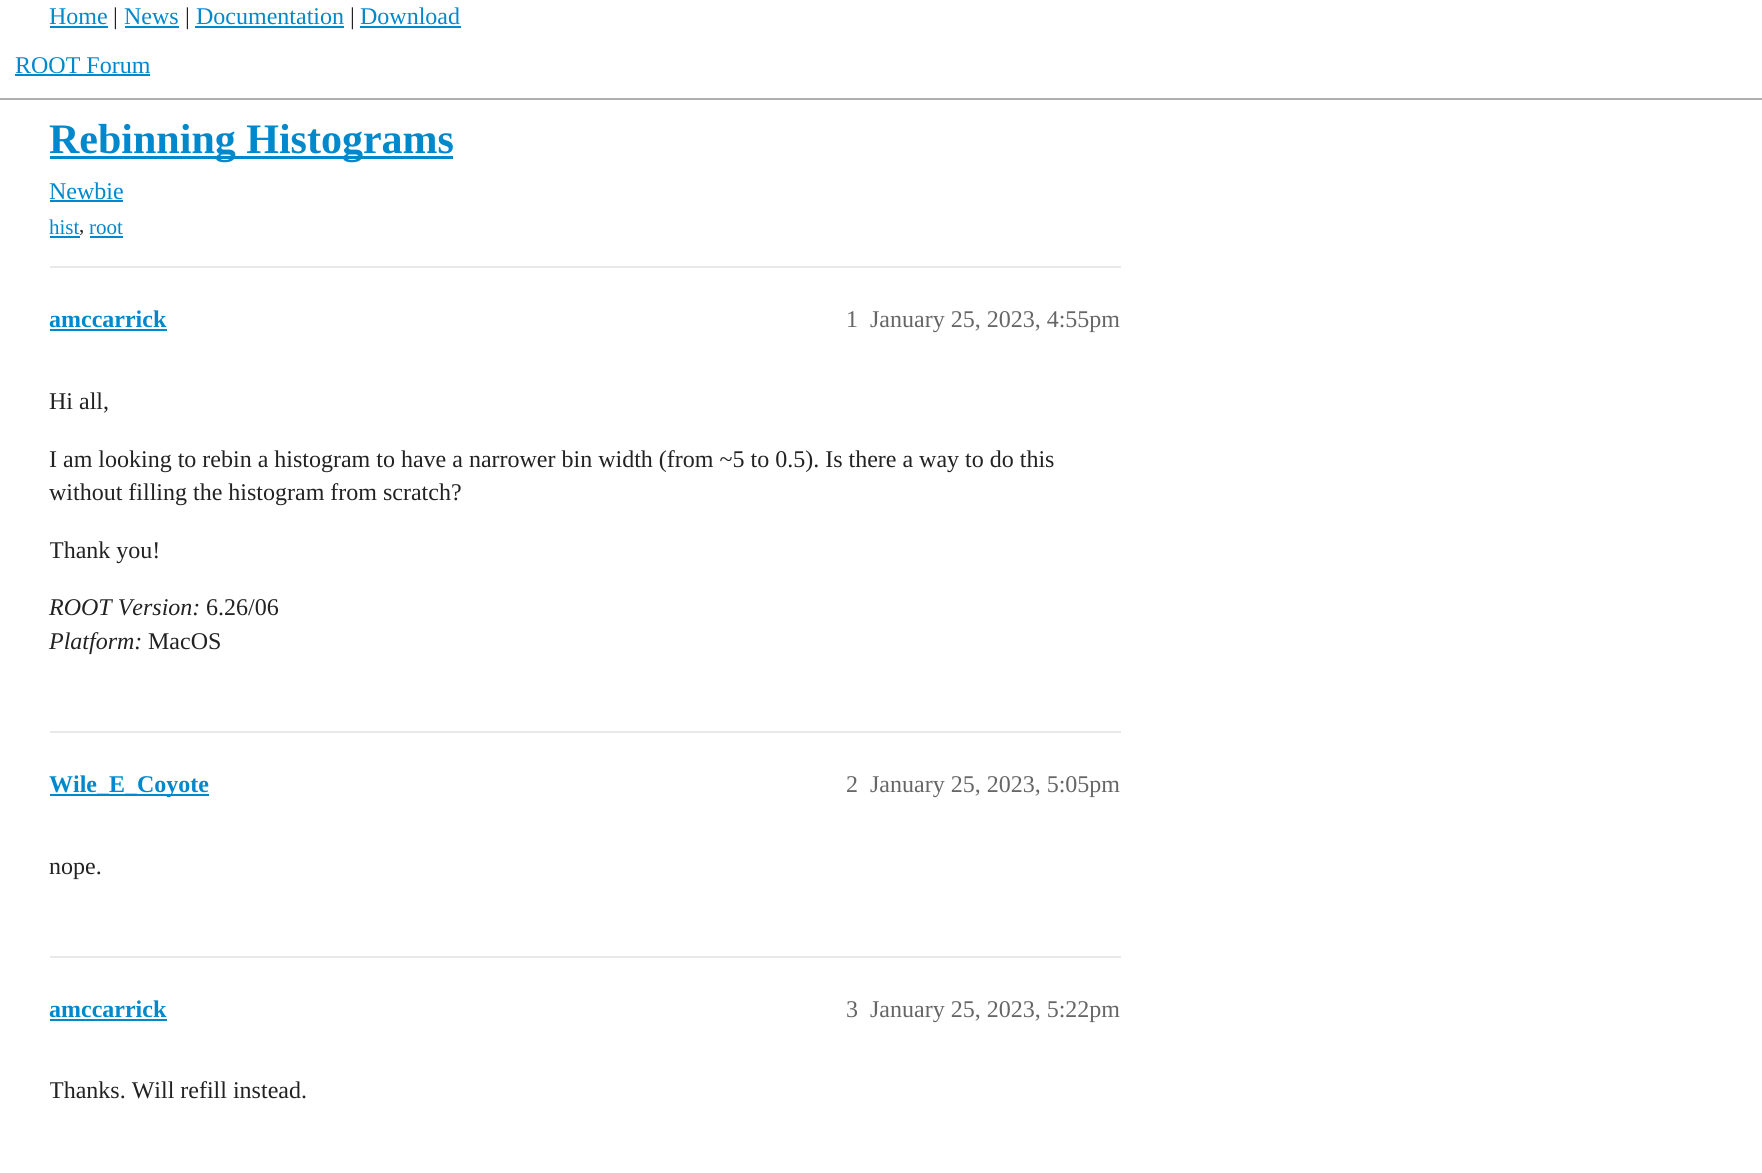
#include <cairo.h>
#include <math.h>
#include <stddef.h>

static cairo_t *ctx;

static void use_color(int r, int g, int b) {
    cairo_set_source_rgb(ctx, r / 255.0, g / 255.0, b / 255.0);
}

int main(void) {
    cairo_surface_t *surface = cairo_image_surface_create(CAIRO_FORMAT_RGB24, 1762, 1173);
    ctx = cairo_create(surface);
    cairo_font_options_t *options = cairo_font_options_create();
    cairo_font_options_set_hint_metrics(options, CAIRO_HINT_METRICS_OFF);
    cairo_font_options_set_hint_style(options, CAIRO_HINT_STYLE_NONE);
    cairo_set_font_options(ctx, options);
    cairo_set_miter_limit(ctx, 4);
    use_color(255, 255, 255);
    cairo_paint(ctx);
    cairo_select_font_face(ctx, "Liberation Serif", CAIRO_FONT_SLANT_NORMAL, CAIRO_FONT_WEIGHT_NORMAL);
    cairo_set_font_size(ctx, 24);
    use_color(0, 136, 204);
    cairo_move_to(ctx, 49, 24);
    cairo_show_text(ctx, "Home");
    cairo_rectangle(ctx, 50, 26, 58, 2);
    cairo_fill(ctx);
    use_color(34, 34, 34);
    cairo_move_to(ctx, 113, 24);
    cairo_show_text(ctx, "|");
    use_color(0, 136, 204);
    cairo_move_to(ctx, 124, 24);
    cairo_show_text(ctx, "News");
    cairo_rectangle(ctx, 125, 26, 54, 2);
    cairo_fill(ctx);
    use_color(34, 34, 34);
    cairo_move_to(ctx, 185, 24);
    cairo_show_text(ctx, "|");
    use_color(0, 136, 204);
    cairo_move_to(ctx, 196, 24);
    cairo_show_text(ctx, "Documentation");
    cairo_rectangle(ctx, 195, 26, 149, 2);
    cairo_fill(ctx);
    use_color(34, 34, 34);
    cairo_move_to(ctx, 350, 24);
    cairo_show_text(ctx, "|");
    use_color(0, 136, 204);
    cairo_move_to(ctx, 360, 24);
    cairo_show_text(ctx, "Download");
    cairo_rectangle(ctx, 360, 26, 101, 2);
    cairo_fill(ctx);
    use_color(175, 175, 175);
    cairo_rectangle(ctx, 0, 98, 1762, 2);
    cairo_fill(ctx);
    use_color(0, 136, 204);
    cairo_move_to(ctx, 15, 73);
    cairo_show_text(ctx, "ROOT Forum");
    cairo_rectangle(ctx, 15, 74, 135, 2);
    cairo_fill(ctx);
    cairo_rectangle(ctx, 50, 156, 403, 3);
    cairo_fill(ctx);
    cairo_select_font_face(ctx, "Liberation Serif", CAIRO_FONT_SLANT_NORMAL, CAIRO_FONT_WEIGHT_BOLD);
    cairo_set_font_size(ctx, 42);
    cairo_move_to(ctx, 49, 153);
    cairo_show_text(ctx, "Rebinning Histograms");
    cairo_select_font_face(ctx, "Liberation Serif", CAIRO_FONT_SLANT_NORMAL, CAIRO_FONT_WEIGHT_NORMAL);
    cairo_set_font_size(ctx, 24);
    cairo_move_to(ctx, 49, 199);
    cairo_show_text(ctx, "Newbie");
    cairo_rectangle(ctx, 50, 200, 73, 2);
    cairo_fill(ctx);
    cairo_set_font_size(ctx, 21);
    cairo_move_to(ctx, 49, 234);
    cairo_show_text(ctx, "hist");
    cairo_rectangle(ctx, 50, 236, 30, 2);
    cairo_fill(ctx);
    use_color(34, 34, 34);
    cairo_move_to(ctx, 79, 232);
    cairo_show_text(ctx, ",");
    use_color(0, 136, 204);
    cairo_move_to(ctx, 89, 234);
    cairo_show_text(ctx, "root");
    cairo_rectangle(ctx, 90, 236, 33, 2);
    cairo_fill(ctx);
    use_color(233, 233, 233);
    cairo_rectangle(ctx, 50, 266, 1071, 2);
    cairo_fill(ctx);
    cairo_select_font_face(ctx, "Liberation Serif", CAIRO_FONT_SLANT_NORMAL, CAIRO_FONT_WEIGHT_BOLD);
    cairo_set_font_size(ctx, 24);
    use_color(0, 136, 204);
    cairo_move_to(ctx, 49, 327);
    cairo_show_text(ctx, "amccarrick");
    cairo_rectangle(ctx, 50, 329, 117, 2);
    cairo_fill(ctx);
    cairo_select_font_face(ctx, "Liberation Serif", CAIRO_FONT_SLANT_NORMAL, CAIRO_FONT_WEIGHT_NORMAL);
    use_color(102, 102, 102);
    cairo_move_to(ctx, 846, 327);
    cairo_show_text(ctx, "1");
    cairo_move_to(ctx, 870, 327);
    cairo_show_text(ctx, "January 25, 2023, 4:55pm");
    use_color(34, 34, 34);
    cairo_move_to(ctx, 49, 409);
    cairo_show_text(ctx, "Hi all,");
    cairo_move_to(ctx, 49, 467);
    cairo_show_text(ctx, "I am looking to rebin a histogram to have a narrower bin width (from ~5 to 0.5). Is there a way to do this");
    cairo_move_to(ctx, 49, 500);
    cairo_show_text(ctx, "without filling the histogram from scratch?");
    cairo_save(ctx);
    cairo_rectangle(ctx, 50, 362, 1071, 321);
    cairo_clip(ctx);
    cairo_move_to(ctx, 49, 558);
    cairo_show_text(ctx, "Thank you!");
    cairo_restore(ctx);
    cairo_select_font_face(ctx, "Liberation Serif", CAIRO_FONT_SLANT_ITALIC, CAIRO_FONT_WEIGHT_NORMAL);
    cairo_move_to(ctx, 49, 615);
    cairo_show_text(ctx, "ROOT Version:");
    cairo_select_font_face(ctx, "Liberation Serif", CAIRO_FONT_SLANT_NORMAL, CAIRO_FONT_WEIGHT_NORMAL);
    cairo_move_to(ctx, 206, 615);
    cairo_show_text(ctx, "6.26/06");
    cairo_select_font_face(ctx, "Liberation Serif", CAIRO_FONT_SLANT_ITALIC, CAIRO_FONT_WEIGHT_NORMAL);
    cairo_move_to(ctx, 49, 649);
    cairo_show_text(ctx, "Platform:");
    cairo_select_font_face(ctx, "Liberation Serif", CAIRO_FONT_SLANT_NORMAL, CAIRO_FONT_WEIGHT_NORMAL);
    cairo_move_to(ctx, 148, 649);
    cairo_show_text(ctx, "MacOS");
    use_color(233, 233, 233);
    cairo_rectangle(ctx, 50, 731, 1071, 2);
    cairo_fill(ctx);
    use_color(0, 136, 204);
    cairo_rectangle(ctx, 50, 794, 159, 2);
    cairo_fill(ctx);
    cairo_select_font_face(ctx, "Liberation Serif", CAIRO_FONT_SLANT_NORMAL, CAIRO_FONT_WEIGHT_BOLD);
    cairo_move_to(ctx, 49, 792);
    cairo_show_text(ctx, "Wile_E_Coyote");
    cairo_select_font_face(ctx, "Liberation Serif", CAIRO_FONT_SLANT_NORMAL, CAIRO_FONT_WEIGHT_NORMAL);
    use_color(102, 102, 102);
    cairo_move_to(ctx, 846, 792);
    cairo_show_text(ctx, "2");
    cairo_move_to(ctx, 870, 792);
    cairo_show_text(ctx, "January 25, 2023, 5:05pm");
    use_color(34, 34, 34);
    cairo_move_to(ctx, 49, 874);
    cairo_show_text(ctx, "nope.");
    use_color(233, 233, 233);
    cairo_rectangle(ctx, 50, 956, 1071, 2);
    cairo_fill(ctx);
    cairo_select_font_face(ctx, "Liberation Serif", CAIRO_FONT_SLANT_NORMAL, CAIRO_FONT_WEIGHT_BOLD);
    use_color(0, 136, 204);
    cairo_move_to(ctx, 49, 1017);
    cairo_show_text(ctx, "amccarrick");
    cairo_rectangle(ctx, 50, 1019, 117, 2);
    cairo_fill(ctx);
    cairo_select_font_face(ctx, "Liberation Serif", CAIRO_FONT_SLANT_NORMAL, CAIRO_FONT_WEIGHT_NORMAL);
    use_color(102, 102, 102);
    cairo_move_to(ctx, 846, 1017);
    cairo_show_text(ctx, "3");
    cairo_move_to(ctx, 870, 1017);
    cairo_show_text(ctx, "January 25, 2023, 5:22pm");
    cairo_save(ctx);
    cairo_rectangle(ctx, 50, 1050, 1071, 83);
    cairo_clip(ctx);
    use_color(34, 34, 34);
    cairo_move_to(ctx, 49, 1098);
    cairo_show_text(ctx, "Thanks. Will refill instead.");
    cairo_restore(ctx);
    cairo_surface_write_to_png(surface, "result.png");
    cairo_font_options_destroy(options);
    cairo_destroy(ctx);
    cairo_surface_destroy(surface);
    return 0;
}
